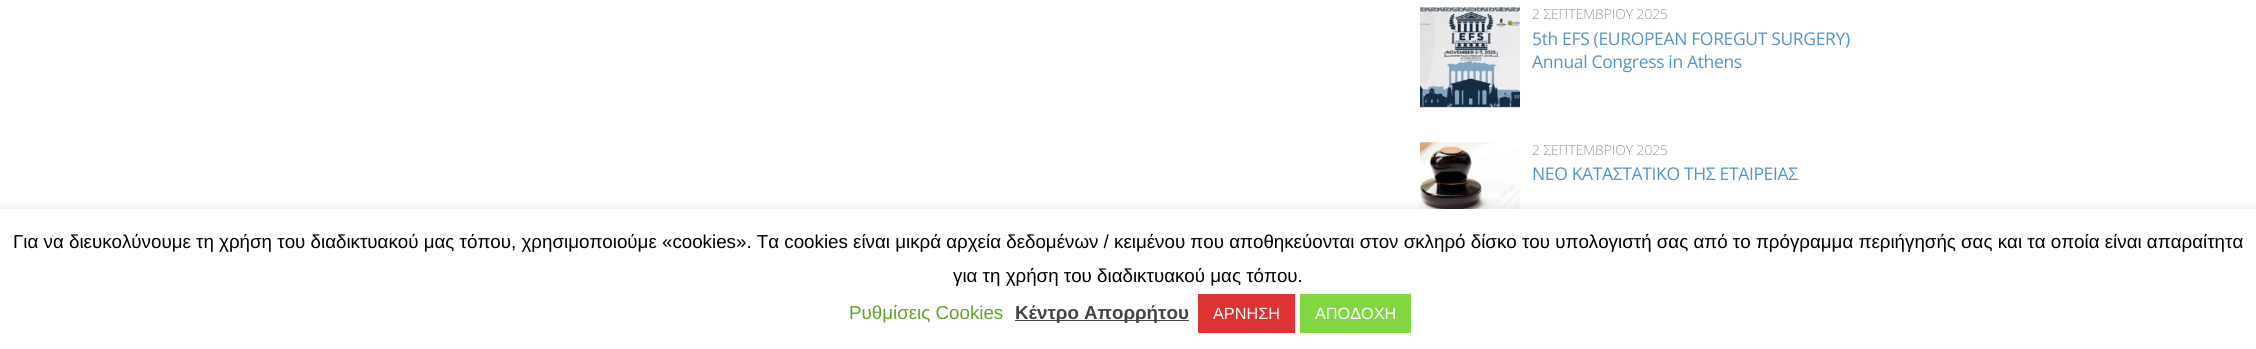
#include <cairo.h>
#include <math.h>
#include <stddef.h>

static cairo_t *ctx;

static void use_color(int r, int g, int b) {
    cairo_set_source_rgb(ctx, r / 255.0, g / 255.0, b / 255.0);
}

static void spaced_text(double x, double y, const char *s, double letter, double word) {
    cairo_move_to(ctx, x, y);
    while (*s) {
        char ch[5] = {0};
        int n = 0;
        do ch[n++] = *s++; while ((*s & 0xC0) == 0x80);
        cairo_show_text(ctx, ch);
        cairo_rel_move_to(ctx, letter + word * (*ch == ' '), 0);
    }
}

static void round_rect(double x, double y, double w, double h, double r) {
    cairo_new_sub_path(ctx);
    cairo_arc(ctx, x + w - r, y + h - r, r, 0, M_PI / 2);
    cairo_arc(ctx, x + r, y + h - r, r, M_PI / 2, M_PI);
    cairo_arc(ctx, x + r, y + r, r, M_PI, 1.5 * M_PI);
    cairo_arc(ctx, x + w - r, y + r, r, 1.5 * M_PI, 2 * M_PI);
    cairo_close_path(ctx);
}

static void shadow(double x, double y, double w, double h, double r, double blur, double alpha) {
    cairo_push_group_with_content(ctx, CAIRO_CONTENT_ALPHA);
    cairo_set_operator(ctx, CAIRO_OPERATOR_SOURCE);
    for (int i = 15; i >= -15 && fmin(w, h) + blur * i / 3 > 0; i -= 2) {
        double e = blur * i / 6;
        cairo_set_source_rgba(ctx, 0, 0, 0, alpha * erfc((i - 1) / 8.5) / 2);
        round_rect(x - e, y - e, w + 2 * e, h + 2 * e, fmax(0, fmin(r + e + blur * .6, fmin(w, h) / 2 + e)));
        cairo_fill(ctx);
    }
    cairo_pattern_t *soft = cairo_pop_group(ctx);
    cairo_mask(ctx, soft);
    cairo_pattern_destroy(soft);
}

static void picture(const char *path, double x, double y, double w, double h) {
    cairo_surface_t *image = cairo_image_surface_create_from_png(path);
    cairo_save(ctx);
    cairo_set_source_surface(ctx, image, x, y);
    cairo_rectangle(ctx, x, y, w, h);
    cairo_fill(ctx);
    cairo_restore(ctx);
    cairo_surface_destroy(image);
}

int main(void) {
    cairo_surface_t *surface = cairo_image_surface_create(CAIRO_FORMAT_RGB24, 2256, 349);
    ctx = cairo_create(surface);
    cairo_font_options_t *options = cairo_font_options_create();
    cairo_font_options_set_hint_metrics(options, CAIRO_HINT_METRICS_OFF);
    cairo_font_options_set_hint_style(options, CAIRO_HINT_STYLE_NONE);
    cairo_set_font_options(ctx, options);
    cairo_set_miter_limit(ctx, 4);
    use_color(255, 255, 255);
    cairo_paint(ctx);
    picture("img1.png", 1420, 7, 100, 101);
    cairo_select_font_face(ctx, "Open Sans Light", CAIRO_FONT_SLANT_NORMAL, CAIRO_FONT_WEIGHT_NORMAL);
    cairo_set_font_size(ctx, 13.75);
    use_color(152, 152, 152);
    cairo_move_to(ctx, 1532, 19);
    cairo_show_text(ctx, "2 ΣΕΠΤΕΜΒΡΙΟΥ 2025");
    cairo_select_font_face(ctx, "Open Sans", CAIRO_FONT_SLANT_NORMAL, CAIRO_FONT_WEIGHT_NORMAL);
    cairo_set_font_size(ctx, 17.5);
    use_color(84, 147, 202);
    spaced_text(1532, 45, "5th EFS (EUROPEAN FOREGUT SURGERY)", -0.35, 0);
    spaced_text(1532, 68, "Annual Congress in Athens", -0.35, 0);
    picture("img2.png", 1420, 142, 100, 67);
    cairo_select_font_face(ctx, "Open Sans Light", CAIRO_FONT_SLANT_NORMAL, CAIRO_FONT_WEIGHT_NORMAL);
    cairo_set_font_size(ctx, 13.75);
    use_color(152, 152, 152);
    cairo_move_to(ctx, 1532, 155);
    cairo_show_text(ctx, "2 ΣΕΠΤΕΜΒΡΙΟΥ 2025");
    cairo_select_font_face(ctx, "Open Sans", CAIRO_FONT_SLANT_NORMAL, CAIRO_FONT_WEIGHT_NORMAL);
    cairo_set_font_size(ctx, 17.5);
    use_color(84, 147, 202);
    spaced_text(1532, 180, "ΝΕΟ ΚΑΤΑΣΤΑΤΙΚΟ ΤΗΣ ΕΤΑΙΡΕΙΑΣ", -0.35, 0);
    use_color(172, 171, 171);
    shadow(0, 208, 2256, 141, 0, 6, 0.3);
    use_color(255, 255, 255);
    cairo_rectangle(ctx, 0, 209, 2256, 140);
    cairo_fill(ctx);
    cairo_select_font_face(ctx, "Liberation Sans", CAIRO_FONT_SLANT_NORMAL, CAIRO_FONT_WEIGHT_NORMAL);
    cairo_set_font_size(ctx, 18.75);
    use_color(0, 0, 0);
    cairo_move_to(ctx, 13, 248);
    cairo_show_text(ctx, "Για να διευκολύνουμε τη χρήση του διαδικτυακού μας τόπου, χρησιμοποιούμε «cookies». Τα cookies είναι μικρά αρχεία δεδομένων / κειμένου που αποθηκεύονται στον σκληρό δίσκο του υπολογιστή σας από το πρόγραμμα περιήγησής σας και τα οποία είναι απαραίτητα");
    cairo_move_to(ctx, 953, 282);
    cairo_show_text(ctx, "για τη χρήση του διαδικτυακού μας τόπου.");
    use_color(98, 163, 41);
    cairo_move_to(ctx, 849, 319);
    cairo_show_text(ctx, "Ρυθμίσεις Cookies");
    use_color(68, 68, 68);
    cairo_rectangle(ctx, 1015, 320, 174, 1);
    cairo_fill(ctx);
    cairo_select_font_face(ctx, "Liberation Sans", CAIRO_FONT_SLANT_NORMAL, CAIRO_FONT_WEIGHT_BOLD);
    cairo_move_to(ctx, 1015, 319);
    cairo_show_text(ctx, "Κέντρο Απορρήτου");
    use_color(221, 51, 51);
    cairo_rectangle(ctx, 1198, 294, 97, 39);
    cairo_fill(ctx);
    cairo_select_font_face(ctx, "Liberation Sans", CAIRO_FONT_SLANT_NORMAL, CAIRO_FONT_WEIGHT_NORMAL);
    cairo_set_font_size(ctx, 16.25);
    use_color(255, 255, 255);
    cairo_move_to(ctx, 1213, 319);
    cairo_show_text(ctx, "ΑΡΝΗΣΗ");
    use_color(129, 215, 66);
    cairo_rectangle(ctx, 1300, 294, 111, 39);
    cairo_fill(ctx);
    use_color(255, 255, 255);
    cairo_move_to(ctx, 1315, 319);
    cairo_show_text(ctx, "ΑΠΟΔΟΧΗ");
    cairo_surface_write_to_png(surface, "result.png");
    cairo_font_options_destroy(options);
    cairo_destroy(ctx);
    cairo_surface_destroy(surface);
    return 0;
}
